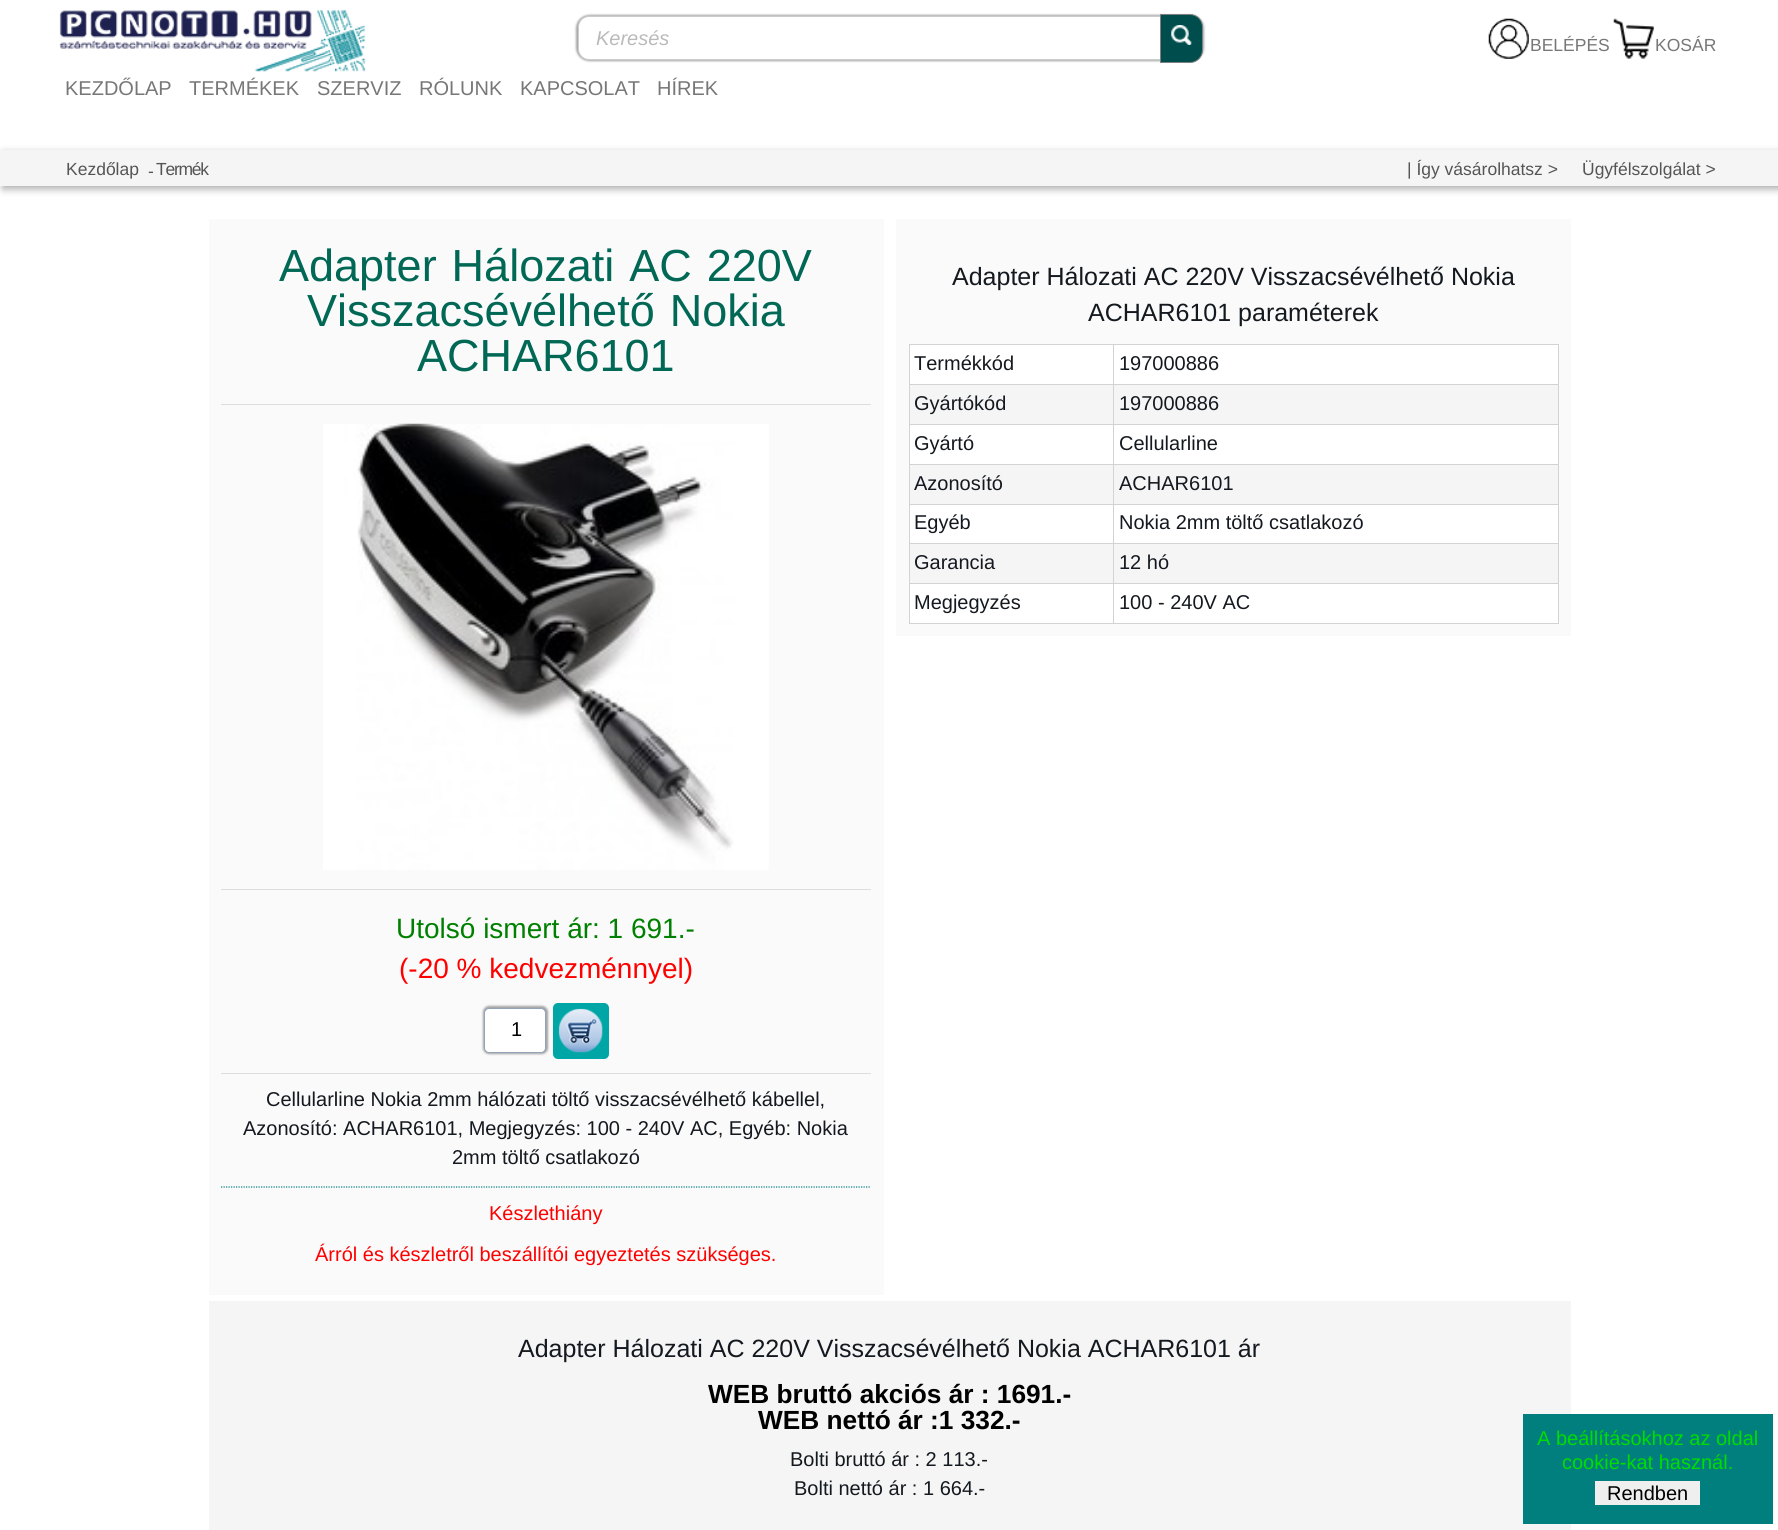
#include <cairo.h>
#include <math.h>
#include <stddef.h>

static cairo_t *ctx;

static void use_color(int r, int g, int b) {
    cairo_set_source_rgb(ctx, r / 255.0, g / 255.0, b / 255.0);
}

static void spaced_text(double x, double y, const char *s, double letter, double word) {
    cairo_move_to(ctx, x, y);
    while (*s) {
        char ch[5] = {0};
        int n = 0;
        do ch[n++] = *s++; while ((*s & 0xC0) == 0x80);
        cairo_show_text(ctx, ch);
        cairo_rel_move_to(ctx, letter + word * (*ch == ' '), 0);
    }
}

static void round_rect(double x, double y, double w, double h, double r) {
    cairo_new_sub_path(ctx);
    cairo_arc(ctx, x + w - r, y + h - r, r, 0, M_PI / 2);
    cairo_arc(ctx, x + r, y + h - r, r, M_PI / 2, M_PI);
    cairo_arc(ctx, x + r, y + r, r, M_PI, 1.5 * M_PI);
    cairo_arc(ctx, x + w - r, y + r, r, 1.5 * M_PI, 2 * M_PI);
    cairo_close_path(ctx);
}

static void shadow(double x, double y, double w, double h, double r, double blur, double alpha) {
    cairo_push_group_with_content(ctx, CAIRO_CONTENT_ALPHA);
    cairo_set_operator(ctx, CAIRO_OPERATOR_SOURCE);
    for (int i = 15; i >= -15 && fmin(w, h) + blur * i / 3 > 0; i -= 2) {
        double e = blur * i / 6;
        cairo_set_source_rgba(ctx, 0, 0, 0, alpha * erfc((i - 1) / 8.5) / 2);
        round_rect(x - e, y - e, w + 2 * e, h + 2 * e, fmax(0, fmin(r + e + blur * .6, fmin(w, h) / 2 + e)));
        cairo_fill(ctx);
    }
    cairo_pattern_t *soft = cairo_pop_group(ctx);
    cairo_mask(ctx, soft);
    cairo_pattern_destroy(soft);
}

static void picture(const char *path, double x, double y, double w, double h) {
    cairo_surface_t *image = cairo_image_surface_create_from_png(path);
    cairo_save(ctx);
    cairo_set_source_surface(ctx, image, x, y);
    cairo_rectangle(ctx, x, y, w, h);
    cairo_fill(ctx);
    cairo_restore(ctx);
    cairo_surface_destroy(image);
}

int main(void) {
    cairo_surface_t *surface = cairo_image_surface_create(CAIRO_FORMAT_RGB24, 1778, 1530);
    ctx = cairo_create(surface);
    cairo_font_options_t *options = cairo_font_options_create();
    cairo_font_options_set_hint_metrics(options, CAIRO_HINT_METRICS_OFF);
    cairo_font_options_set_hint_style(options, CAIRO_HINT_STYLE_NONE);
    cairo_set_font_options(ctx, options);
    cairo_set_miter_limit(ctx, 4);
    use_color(255, 255, 255);
    cairo_paint(ctx);
    use_color(0, 0, 0);
    shadow(576, 15, 628, 46, 13, 1, 0.35);
    use_color(255, 255, 255);
    round_rect(578.5, 16.5, 624, 43, 10.5);
    cairo_fill_preserve(ctx);
    use_color(204, 204, 204);
    cairo_set_line_width(ctx, 1);
    cairo_stroke(ctx);
    cairo_select_font_face(ctx, "Liberation Sans", CAIRO_FONT_SLANT_ITALIC, CAIRO_FONT_WEIGHT_NORMAL);
    cairo_set_font_size(ctx, 20);
    use_color(186, 186, 186);
    cairo_move_to(ctx, 596, 45);
    cairo_show_text(ctx, "Keresés");
    use_color(0, 77, 77);
    cairo_new_path(ctx);
    cairo_move_to(ctx, 1160.5, 14.5);
    cairo_line_to(ctx, 1190, 14.5);
    cairo_curve_to(ctx, 1197, 14.5, 1202.5, 20, 1202.5, 27);
    cairo_line_to(ctx, 1202.5, 50);
    cairo_curve_to(ctx, 1202.5, 57, 1197, 62.5, 1190, 62.5);
    cairo_line_to(ctx, 1160.5, 62.5);
    cairo_close_path(ctx);
    cairo_fill_preserve(ctx);
    use_color(128, 128, 128);
    cairo_stroke(ctx);
    picture("img1.png", 1171, 25, 21, 20);
    picture("img2.png", 1488, 18, 41, 41);
    cairo_select_font_face(ctx, "Liberation Sans", CAIRO_FONT_SLANT_NORMAL, CAIRO_FONT_WEIGHT_NORMAL);
    cairo_set_font_size(ctx, 17.5);
    use_color(119, 119, 119);
    cairo_move_to(ctx, 1530, 51);
    cairo_show_text(ctx, "BELÉPÉS");
    picture("img3.png", 1613, 18, 41, 41);
    cairo_move_to(ctx, 1655, 51);
    cairo_show_text(ctx, "KOSÁR");
    picture("img4.png", 59, 10, 307, 62);
    cairo_set_font_size(ctx, 20);
    cairo_move_to(ctx, 65, 95);
    cairo_show_text(ctx, "KEZDŐLAP");
    cairo_move_to(ctx, 189, 95);
    cairo_show_text(ctx, "TERMÉKEK");
    cairo_move_to(ctx, 317, 95);
    cairo_show_text(ctx, "SZERVIZ");
    cairo_move_to(ctx, 419, 95);
    cairo_show_text(ctx, "RÓLUNK");
    cairo_move_to(ctx, 520, 95);
    cairo_show_text(ctx, "KAPCSOLAT");
    cairo_move_to(ctx, 657, 95);
    cairo_show_text(ctx, "HÍREK");
    use_color(0, 0, 0);
    shadow(3, 153, 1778, 36, 0, 4, 0.33);
    use_color(245, 245, 245);
    cairo_rectangle(ctx, 0, 150, 1778, 36);
    cairo_fill(ctx);
    cairo_set_font_size(ctx, 17.5);
    use_color(85, 85, 85);
    cairo_move_to(ctx, 66, 175);
    cairo_show_text(ctx, "Kezdőlap");
    spaced_text(148, 177, "-", -1.25, 0);
    spaced_text(156, 175, "Termék", -1.25, 0);
    cairo_move_to(ctx, 1407, 175);
    cairo_show_text(ctx, "| Így vásárolhatsz >");
    cairo_move_to(ctx, 1582, 175);
    cairo_show_text(ctx, "Ügyfélszolgálat >");
    use_color(250, 250, 250);
    cairo_rectangle(ctx, 209, 219, 675, 1076);
    cairo_fill(ctx);
    cairo_set_font_size(ctx, 45);
    use_color(0, 104, 85);
    spaced_text(279, 281, "Adapter Hálozati AC 220V", 0, 2.5);
    spaced_text(307, 326, "Visszacsévélhető Nokia", 0, 2.5);
    cairo_move_to(ctx, 417, 371);
    cairo_show_text(ctx, "ACHAR6101");
    use_color(221, 221, 221);
    cairo_rectangle(ctx, 221, 404, 650, 1);
    cairo_fill(ctx);
    picture("img5.png", 323, 423, 446, 447);
    cairo_rectangle(ctx, 221, 889, 650, 1);
    cairo_fill(ctx);
    cairo_set_font_size(ctx, 28);
    use_color(0, 128, 0);
    cairo_move_to(ctx, 396, 938);
    cairo_show_text(ctx, "Utolsó ismert ár: 1 691.-");
    use_color(255, 0, 0);
    cairo_move_to(ctx, 399, 978);
    cairo_show_text(ctx, "(-20 % kedvezménnyel)");
    use_color(0, 0, 0);
    shadow(483, 1006, 65, 48, 6, 1, 0.35);
    use_color(255, 255, 255);
    round_rect(484.5, 1008.5, 61, 44, 4.5);
    cairo_fill_preserve(ctx);
    use_color(147, 164, 184);
    cairo_stroke(ctx);
    cairo_set_font_size(ctx, 20);
    use_color(0, 0, 0);
    cairo_move_to(ctx, 511, 1036);
    cairo_show_text(ctx, "1");
    use_color(0, 166, 166);
    round_rect(553, 1003, 56, 56, 5);
    cairo_fill(ctx);
    picture("img6.png", 558, 1008, 45, 45);
    use_color(221, 221, 221);
    cairo_rectangle(ctx, 221, 1073, 650, 1);
    cairo_fill(ctx);
    use_color(20, 25, 31);
    cairo_move_to(ctx, 266, 1106);
    cairo_show_text(ctx, "Cellularline Nokia 2mm hálózati töltő visszacsévélhető kábellel,");
    cairo_move_to(ctx, 243, 1135);
    cairo_show_text(ctx, "Azonosító: ACHAR6101, Megjegyzés: 100 - 240V AC, Egyéb: Nokia");
    cairo_move_to(ctx, 452, 1164);
    cairo_show_text(ctx, "2mm töltő csatlakozó");
    cairo_new_path(ctx);
    cairo_move_to(ctx, 221, 1187);
    cairo_line_to(ctx, 871, 1187);
    use_color(1, 126, 126);
    cairo_set_line_width(ctx, 1.2);
    cairo_set_dash(ctx, (double[]){1.25, 1.25}, 2, 0);
    cairo_stroke(ctx);
    use_color(255, 0, 0);
    cairo_move_to(ctx, 489, 1220);
    cairo_show_text(ctx, "Készlethiány");
    cairo_move_to(ctx, 315, 1261);
    cairo_show_text(ctx, "Árról és készletről beszállítói egyeztetés szükséges.");
    use_color(250, 250, 250);
    cairo_rectangle(ctx, 896, 219, 675, 417);
    cairo_fill(ctx);
    cairo_set_font_size(ctx, 25);
    use_color(20, 25, 31);
    cairo_move_to(ctx, 952, 285);
    cairo_show_text(ctx, "Adapter Hálozati AC 220V Visszacsévélhető Nokia");
    cairo_move_to(ctx, 1088, 321);
    cairo_show_text(ctx, "ACHAR6101 paraméterek");
    use_color(255, 255, 255);
    cairo_rectangle(ctx, 910, 345, 648, 39);
    cairo_fill(ctx);
    use_color(211, 211, 211);
    cairo_rectangle(ctx, 1113, 344, 446, 1);
    cairo_fill(ctx);
    cairo_rectangle(ctx, 1113, 384, 446, 1);
    cairo_fill(ctx);
    use_color(245, 245, 245);
    cairo_rectangle(ctx, 910, 385, 648, 39);
    cairo_fill(ctx);
    use_color(211, 211, 211);
    cairo_rectangle(ctx, 1113, 424, 446, 1);
    cairo_fill(ctx);
    use_color(255, 255, 255);
    cairo_rectangle(ctx, 910, 425, 648, 39);
    cairo_fill(ctx);
    use_color(211, 211, 211);
    cairo_rectangle(ctx, 1113, 464, 446, 1);
    cairo_fill(ctx);
    use_color(245, 245, 245);
    cairo_rectangle(ctx, 910, 465, 648, 39);
    cairo_fill(ctx);
    use_color(211, 211, 211);
    cairo_rectangle(ctx, 1113, 504, 446, 1);
    cairo_fill(ctx);
    use_color(255, 255, 255);
    cairo_rectangle(ctx, 910, 505, 648, 38);
    cairo_fill(ctx);
    use_color(211, 211, 211);
    cairo_rectangle(ctx, 1113, 543, 446, 1);
    cairo_fill(ctx);
    use_color(245, 245, 245);
    cairo_rectangle(ctx, 910, 544, 648, 39);
    cairo_fill(ctx);
    use_color(211, 211, 211);
    cairo_rectangle(ctx, 1113, 583, 446, 1);
    cairo_fill(ctx);
    use_color(255, 255, 255);
    cairo_rectangle(ctx, 910, 584, 648, 39);
    cairo_fill(ctx);
    use_color(211, 211, 211);
    cairo_rectangle(ctx, 1558, 583, 1, 41);
    cairo_fill(ctx);
    cairo_rectangle(ctx, 1113, 623, 446, 1);
    cairo_fill(ctx);
    cairo_rectangle(ctx, 1113, 583, 1, 41);
    cairo_fill(ctx);
    cairo_rectangle(ctx, 909, 583, 205, 1);
    cairo_fill(ctx);
    cairo_rectangle(ctx, 1113, 543, 1, 41);
    cairo_fill(ctx);
    cairo_rectangle(ctx, 909, 543, 205, 1);
    cairo_fill(ctx);
    cairo_rectangle(ctx, 1113, 504, 1, 40);
    cairo_fill(ctx);
    cairo_rectangle(ctx, 909, 504, 205, 1);
    cairo_fill(ctx);
    cairo_rectangle(ctx, 1113, 464, 1, 41);
    cairo_fill(ctx);
    cairo_rectangle(ctx, 909, 464, 205, 1);
    cairo_fill(ctx);
    cairo_rectangle(ctx, 1113, 424, 1, 41);
    cairo_fill(ctx);
    cairo_rectangle(ctx, 909, 424, 205, 1);
    cairo_fill(ctx);
    cairo_rectangle(ctx, 1113, 384, 1, 41);
    cairo_fill(ctx);
    cairo_rectangle(ctx, 909, 384, 205, 1);
    cairo_fill(ctx);
    cairo_rectangle(ctx, 1113, 344, 1, 41);
    cairo_fill(ctx);
    cairo_rectangle(ctx, 909, 344, 205, 1);
    cairo_fill(ctx);
    cairo_rectangle(ctx, 909, 623, 205, 1);
    cairo_fill(ctx);
    cairo_rectangle(ctx, 909, 583, 1, 41);
    cairo_fill(ctx);
    cairo_rectangle(ctx, 909, 543, 1, 41);
    cairo_fill(ctx);
    cairo_rectangle(ctx, 909, 504, 1, 40);
    cairo_fill(ctx);
    cairo_rectangle(ctx, 909, 464, 1, 41);
    cairo_fill(ctx);
    cairo_rectangle(ctx, 909, 424, 1, 41);
    cairo_fill(ctx);
    cairo_rectangle(ctx, 909, 384, 1, 41);
    cairo_fill(ctx);
    cairo_rectangle(ctx, 909, 344, 1, 41);
    cairo_fill(ctx);
    cairo_set_font_size(ctx, 20);
    use_color(20, 25, 31);
    cairo_move_to(ctx, 914, 370);
    cairo_show_text(ctx, "Termékkód");
    use_color(211, 211, 211);
    cairo_rectangle(ctx, 1558, 543, 1, 41);
    cairo_fill(ctx);
    cairo_rectangle(ctx, 1558, 504, 1, 40);
    cairo_fill(ctx);
    cairo_rectangle(ctx, 1558, 464, 1, 41);
    cairo_fill(ctx);
    cairo_rectangle(ctx, 1558, 424, 1, 41);
    cairo_fill(ctx);
    cairo_rectangle(ctx, 1558, 384, 1, 41);
    cairo_fill(ctx);
    cairo_rectangle(ctx, 1558, 344, 1, 41);
    cairo_fill(ctx);
    use_color(20, 25, 31);
    cairo_move_to(ctx, 1119, 370);
    cairo_show_text(ctx, "197000886");
    cairo_move_to(ctx, 914, 410);
    cairo_show_text(ctx, "Gyártókód");
    cairo_move_to(ctx, 1119, 410);
    cairo_show_text(ctx, "197000886");
    cairo_move_to(ctx, 914, 450);
    cairo_show_text(ctx, "Gyártó");
    cairo_move_to(ctx, 1119, 450);
    cairo_show_text(ctx, "Cellularline");
    cairo_move_to(ctx, 914, 490);
    cairo_show_text(ctx, "Azonosító");
    cairo_move_to(ctx, 1119, 490);
    cairo_show_text(ctx, "ACHAR6101");
    cairo_move_to(ctx, 914, 529);
    cairo_show_text(ctx, "Egyéb");
    cairo_move_to(ctx, 1119, 529);
    cairo_show_text(ctx, "Nokia 2mm töltő csatlakozó");
    cairo_move_to(ctx, 914, 569);
    cairo_show_text(ctx, "Garancia");
    cairo_move_to(ctx, 1119, 569);
    cairo_show_text(ctx, "12 hó");
    cairo_move_to(ctx, 914, 609);
    cairo_show_text(ctx, "Megjegyzés");
    cairo_move_to(ctx, 1119, 609);
    cairo_show_text(ctx, "100 - 240V AC");
    use_color(245, 245, 245);
    cairo_rectangle(ctx, 209, 1301, 1362, 229);
    cairo_fill(ctx);
    cairo_set_font_size(ctx, 25);
    use_color(20, 25, 31);
    cairo_move_to(ctx, 518, 1357);
    cairo_show_text(ctx, "Adapter Hálozati AC 220V Visszacsévélhető Nokia ACHAR6101 ár");
    cairo_select_font_face(ctx, "Liberation Sans", CAIRO_FONT_SLANT_NORMAL, CAIRO_FONT_WEIGHT_BOLD);
    cairo_set_font_size(ctx, 26.25);
    use_color(0, 0, 0);
    cairo_move_to(ctx, 708, 1403);
    cairo_show_text(ctx, "WEB bruttó akciós ár : 1691.-");
    cairo_move_to(ctx, 758, 1429);
    cairo_show_text(ctx, "WEB nettó ár :1 332.-");
    cairo_select_font_face(ctx, "Liberation Sans", CAIRO_FONT_SLANT_NORMAL, CAIRO_FONT_WEIGHT_NORMAL);
    cairo_set_font_size(ctx, 20);
    use_color(20, 25, 31);
    cairo_move_to(ctx, 790, 1466);
    cairo_show_text(ctx, "Bolti bruttó ár : 2 113.-");
    cairo_move_to(ctx, 794, 1495);
    cairo_show_text(ctx, "Bolti nettó ár : 1 664.-");
    use_color(1, 126, 126);
    cairo_rectangle(ctx, 1523, 1414, 250, 110);
    cairo_fill(ctx);
    use_color(0, 221, 0);
    cairo_move_to(ctx, 1537, 1445);
    cairo_show_text(ctx, "A beállításokhoz az oldal");
    cairo_move_to(ctx, 1562, 1469);
    cairo_show_text(ctx, "cookie-kat használ.");
    use_color(239, 239, 239);
    cairo_rectangle(ctx, 1595, 1481, 105, 24);
    cairo_fill(ctx);
    use_color(0, 0, 0);
    cairo_move_to(ctx, 1607, 1500);
    cairo_show_text(ctx, "Rendben");
    cairo_surface_write_to_png(surface, "result.png");
    cairo_font_options_destroy(options);
    cairo_destroy(ctx);
    cairo_surface_destroy(surface);
    return 0;
}
